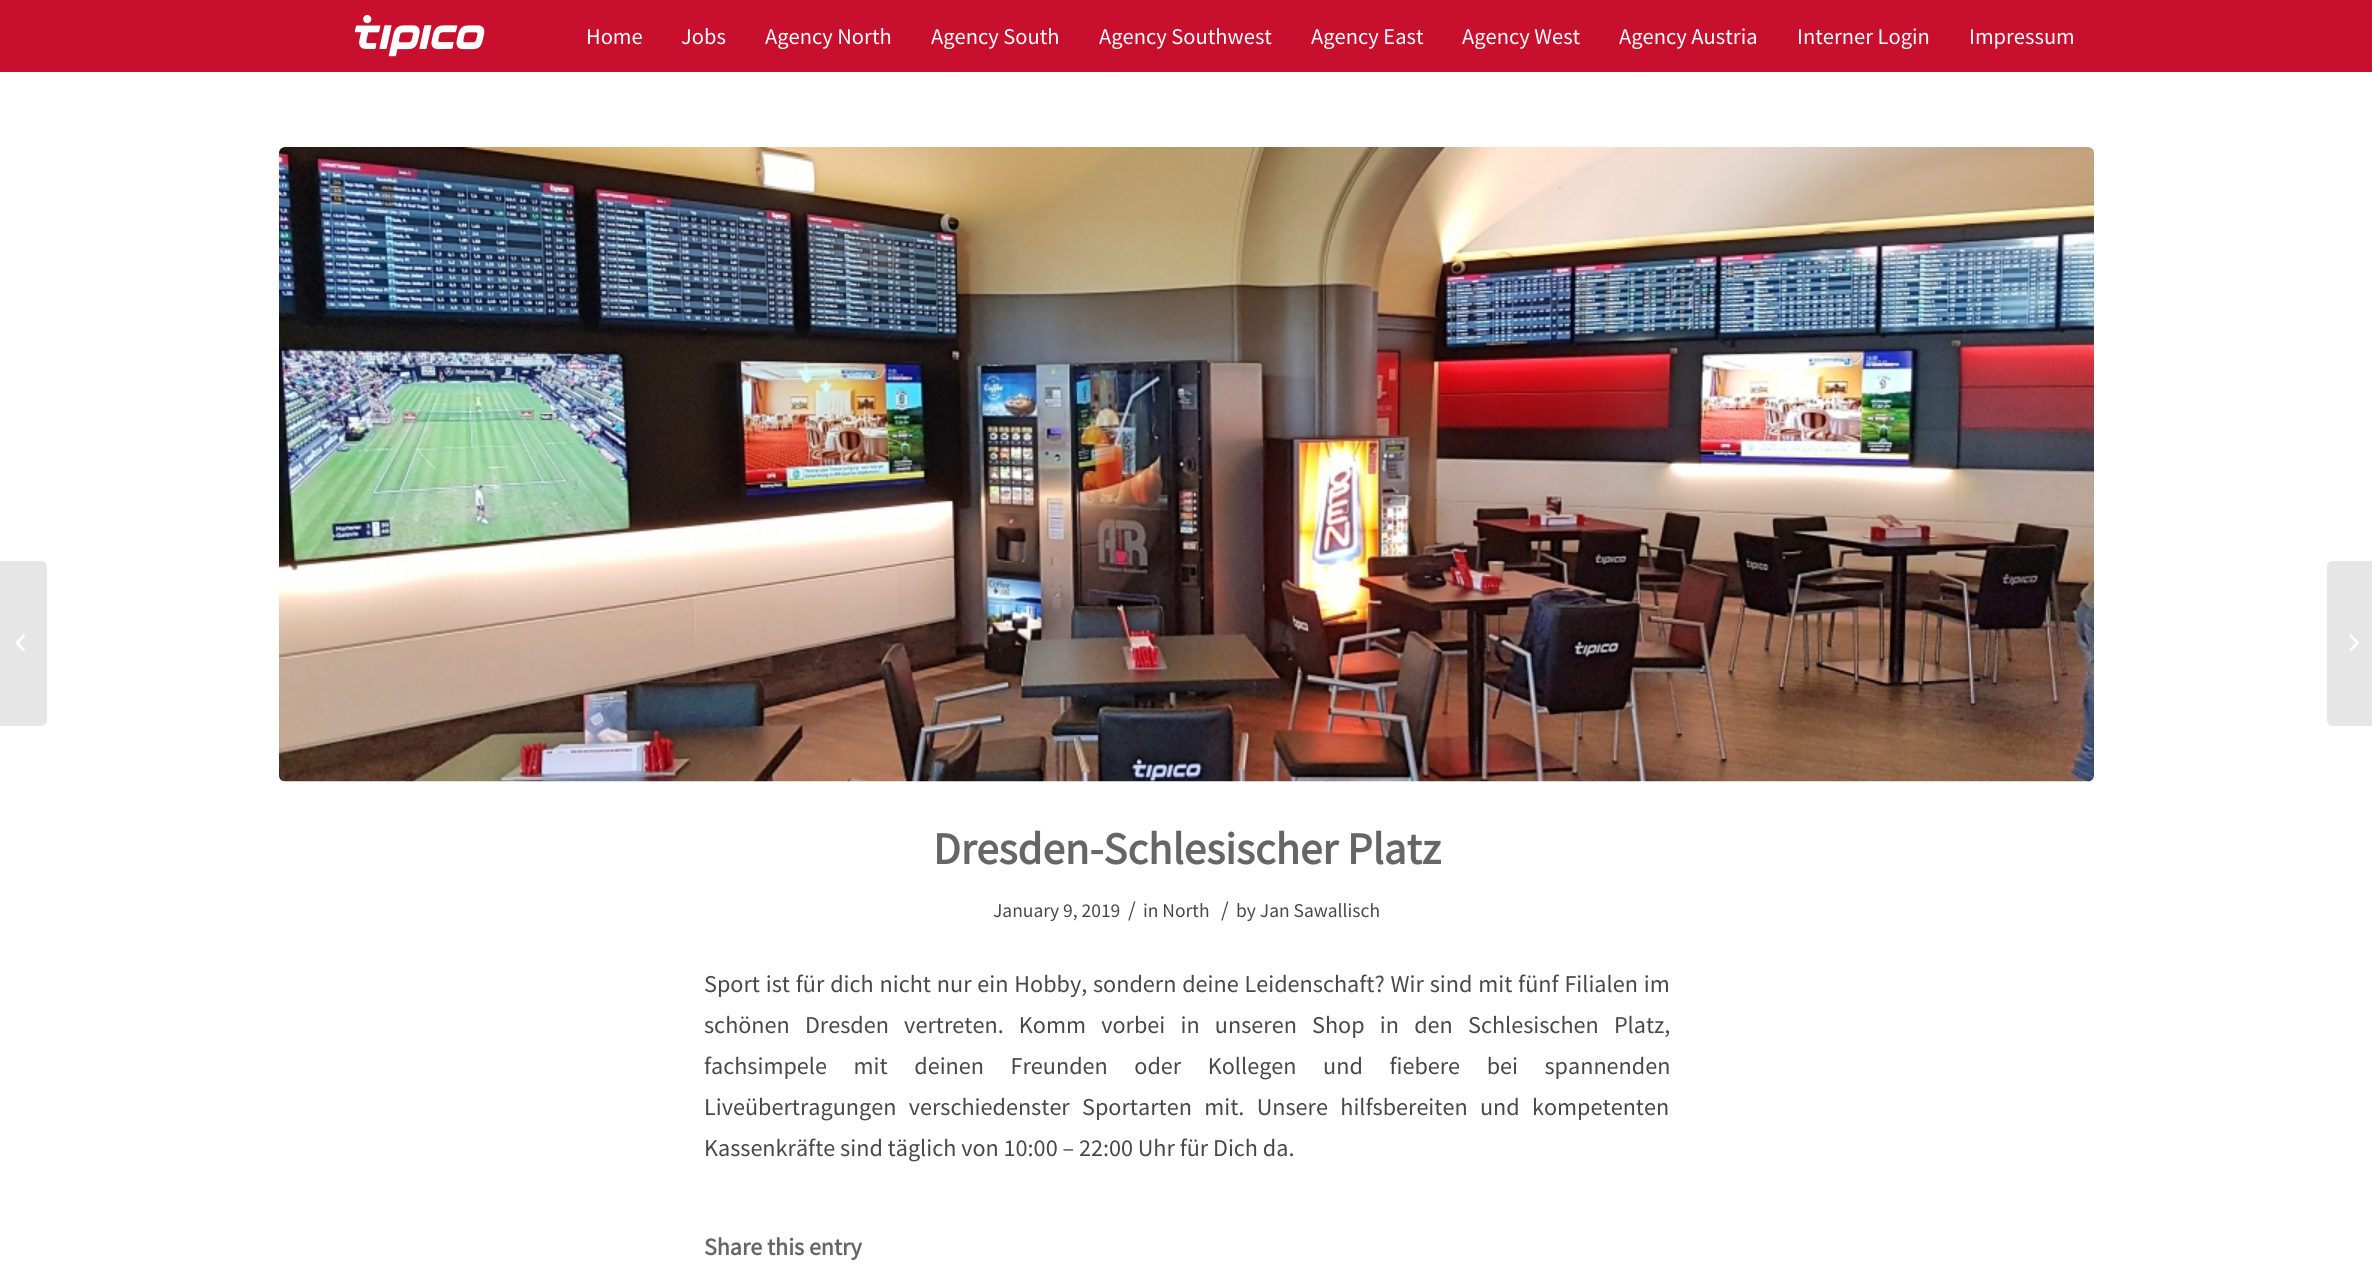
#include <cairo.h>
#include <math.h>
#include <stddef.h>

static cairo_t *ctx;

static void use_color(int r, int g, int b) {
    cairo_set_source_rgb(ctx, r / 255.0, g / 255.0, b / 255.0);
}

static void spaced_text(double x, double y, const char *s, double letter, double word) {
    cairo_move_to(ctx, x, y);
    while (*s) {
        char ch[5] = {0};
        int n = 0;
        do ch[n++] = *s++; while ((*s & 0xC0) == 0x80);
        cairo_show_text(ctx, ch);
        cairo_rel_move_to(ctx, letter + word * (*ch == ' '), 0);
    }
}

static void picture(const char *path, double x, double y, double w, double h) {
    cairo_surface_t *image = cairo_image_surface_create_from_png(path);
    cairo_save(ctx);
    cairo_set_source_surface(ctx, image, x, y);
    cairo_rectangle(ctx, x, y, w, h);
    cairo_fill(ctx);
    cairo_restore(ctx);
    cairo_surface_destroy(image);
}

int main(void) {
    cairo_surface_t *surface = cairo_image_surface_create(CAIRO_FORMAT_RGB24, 2372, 1285);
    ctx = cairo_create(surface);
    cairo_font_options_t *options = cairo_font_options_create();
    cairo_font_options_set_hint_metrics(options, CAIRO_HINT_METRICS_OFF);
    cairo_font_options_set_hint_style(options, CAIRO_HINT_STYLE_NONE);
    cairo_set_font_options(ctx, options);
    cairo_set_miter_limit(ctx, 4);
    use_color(200, 16, 46);
    cairo_paint(ctx);
    picture("img1.png", 354, 15, 131, 42);
    cairo_select_font_face(ctx, "Source Sans Pro", CAIRO_FONT_SLANT_NORMAL, CAIRO_FONT_WEIGHT_NORMAL);
    cairo_set_font_size(ctx, 22.5);
    use_color(255, 255, 255);
    cairo_move_to(ctx, 586, 44);
    cairo_show_text(ctx, "Home");
    cairo_move_to(ctx, 681, 44);
    cairo_show_text(ctx, "Jobs");
    cairo_move_to(ctx, 765, 44);
    cairo_show_text(ctx, "Agency North");
    cairo_move_to(ctx, 931, 44);
    cairo_show_text(ctx, "Agency South");
    cairo_move_to(ctx, 1099, 44);
    cairo_show_text(ctx, "Agency Southwest");
    cairo_move_to(ctx, 1311, 44);
    cairo_show_text(ctx, "Agency East");
    cairo_move_to(ctx, 1462, 44);
    cairo_show_text(ctx, "Agency West");
    cairo_move_to(ctx, 1619, 44);
    cairo_show_text(ctx, "Agency Austria");
    cairo_move_to(ctx, 1797, 44);
    cairo_show_text(ctx, "Interner Login");
    cairo_move_to(ctx, 1969, 44);
    cairo_show_text(ctx, "Impressum");
    cairo_rectangle(ctx, 0, 72, 2372, 1213);
    cairo_fill(ctx);
    use_color(230, 230, 230);
    cairo_new_path(ctx);
    cairo_move_to(ctx, 0, 561);
    cairo_line_to(ctx, 41, 561);
    cairo_curve_to(ctx, 44.5, 561, 47, 563.5, 47, 567);
    cairo_line_to(ctx, 47, 720);
    cairo_curve_to(ctx, 47, 723.5, 44.5, 726, 41, 726);
    cairo_line_to(ctx, 0, 726);
    cairo_close_path(ctx);
    cairo_fill(ctx);
    picture("img2.png", 15, 634, 10, 17);
    cairo_new_path(ctx);
    cairo_move_to(ctx, 2333, 561);
    cairo_line_to(ctx, 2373, 561);
    cairo_line_to(ctx, 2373, 726);
    cairo_line_to(ctx, 2333, 726);
    cairo_curve_to(ctx, 2329.5, 726, 2327, 723.5, 2327, 720);
    cairo_line_to(ctx, 2327, 567);
    cairo_curve_to(ctx, 2327, 563.5, 2329.5, 561, 2333, 561);
    cairo_close_path(ctx);
    cairo_fill(ctx);
    picture("img3.png", 2349, 634, 10, 17);
    picture("img4.png", 279, 147, 1815, 635);
    cairo_select_font_face(ctx, "Source Sans Pro", CAIRO_FONT_SLANT_NORMAL, CAIRO_FONT_WEIGHT_BOLD);
    cairo_set_font_size(ctx, 45);
    use_color(102, 102, 102);
    cairo_move_to(ctx, 933, 864);
    cairo_show_text(ctx, "Dresden-Schlesischer Platz");
    cairo_select_font_face(ctx, "Source Sans Pro", CAIRO_FONT_SLANT_NORMAL, CAIRO_FONT_WEIGHT_NORMAL);
    cairo_set_font_size(ctx, 19.5);
    use_color(72, 72, 72);
    cairo_move_to(ctx, 993, 917);
    cairo_show_text(ctx, "January 9, 2019");
    cairo_set_font_size(ctx, 22);
    cairo_move_to(ctx, 1128, 917);
    cairo_show_text(ctx, "/");
    cairo_set_font_size(ctx, 19.5);
    cairo_move_to(ctx, 1143, 917);
    cairo_show_text(ctx, "in North");
    cairo_set_font_size(ctx, 22);
    cairo_move_to(ctx, 1221, 917);
    cairo_show_text(ctx, "/");
    cairo_set_font_size(ctx, 19.5);
    cairo_move_to(ctx, 1236, 917);
    cairo_show_text(ctx, "by Jan Sawallisch");
    cairo_set_font_size(ctx, 24.15);
    spaced_text(704, 992, "Sport ist für dich nicht nur ein Hobby, sondern deine Leidenschaft? Wir sind mit fünf Filialen im", 0, 1);
    spaced_text(704, 1033, "schönen Dresden vertreten. Komm vorbei in unseren Shop in den Schlesischen Platz,", 0, 10.4);
    spaced_text(704, 1074, "fachsimpele mit deinen Freunden oder Kollegen und fiebere bei spannenden", 0, 21.75);
    spaced_text(704, 1115, "Liveübertragungen verschiedenster Sportarten mit. Unsere hilfsbereiten und kompetenten", 0, 7.5);
    cairo_move_to(ctx, 704, 1156);
    cairo_show_text(ctx, "Kassenkräfte sind täglich von 10:00 – 22:00 Uhr für Dich da.");
    cairo_select_font_face(ctx, "Source Sans Pro", CAIRO_FONT_SLANT_NORMAL, CAIRO_FONT_WEIGHT_BOLD);
    cairo_set_font_size(ctx, 24);
    use_color(102, 102, 102);
    cairo_move_to(ctx, 704, 1255);
    cairo_show_text(ctx, "Share this entry");
    cairo_surface_write_to_png(surface, "result.png");
    cairo_font_options_destroy(options);
    cairo_destroy(ctx);
    cairo_surface_destroy(surface);
    return 0;
}
